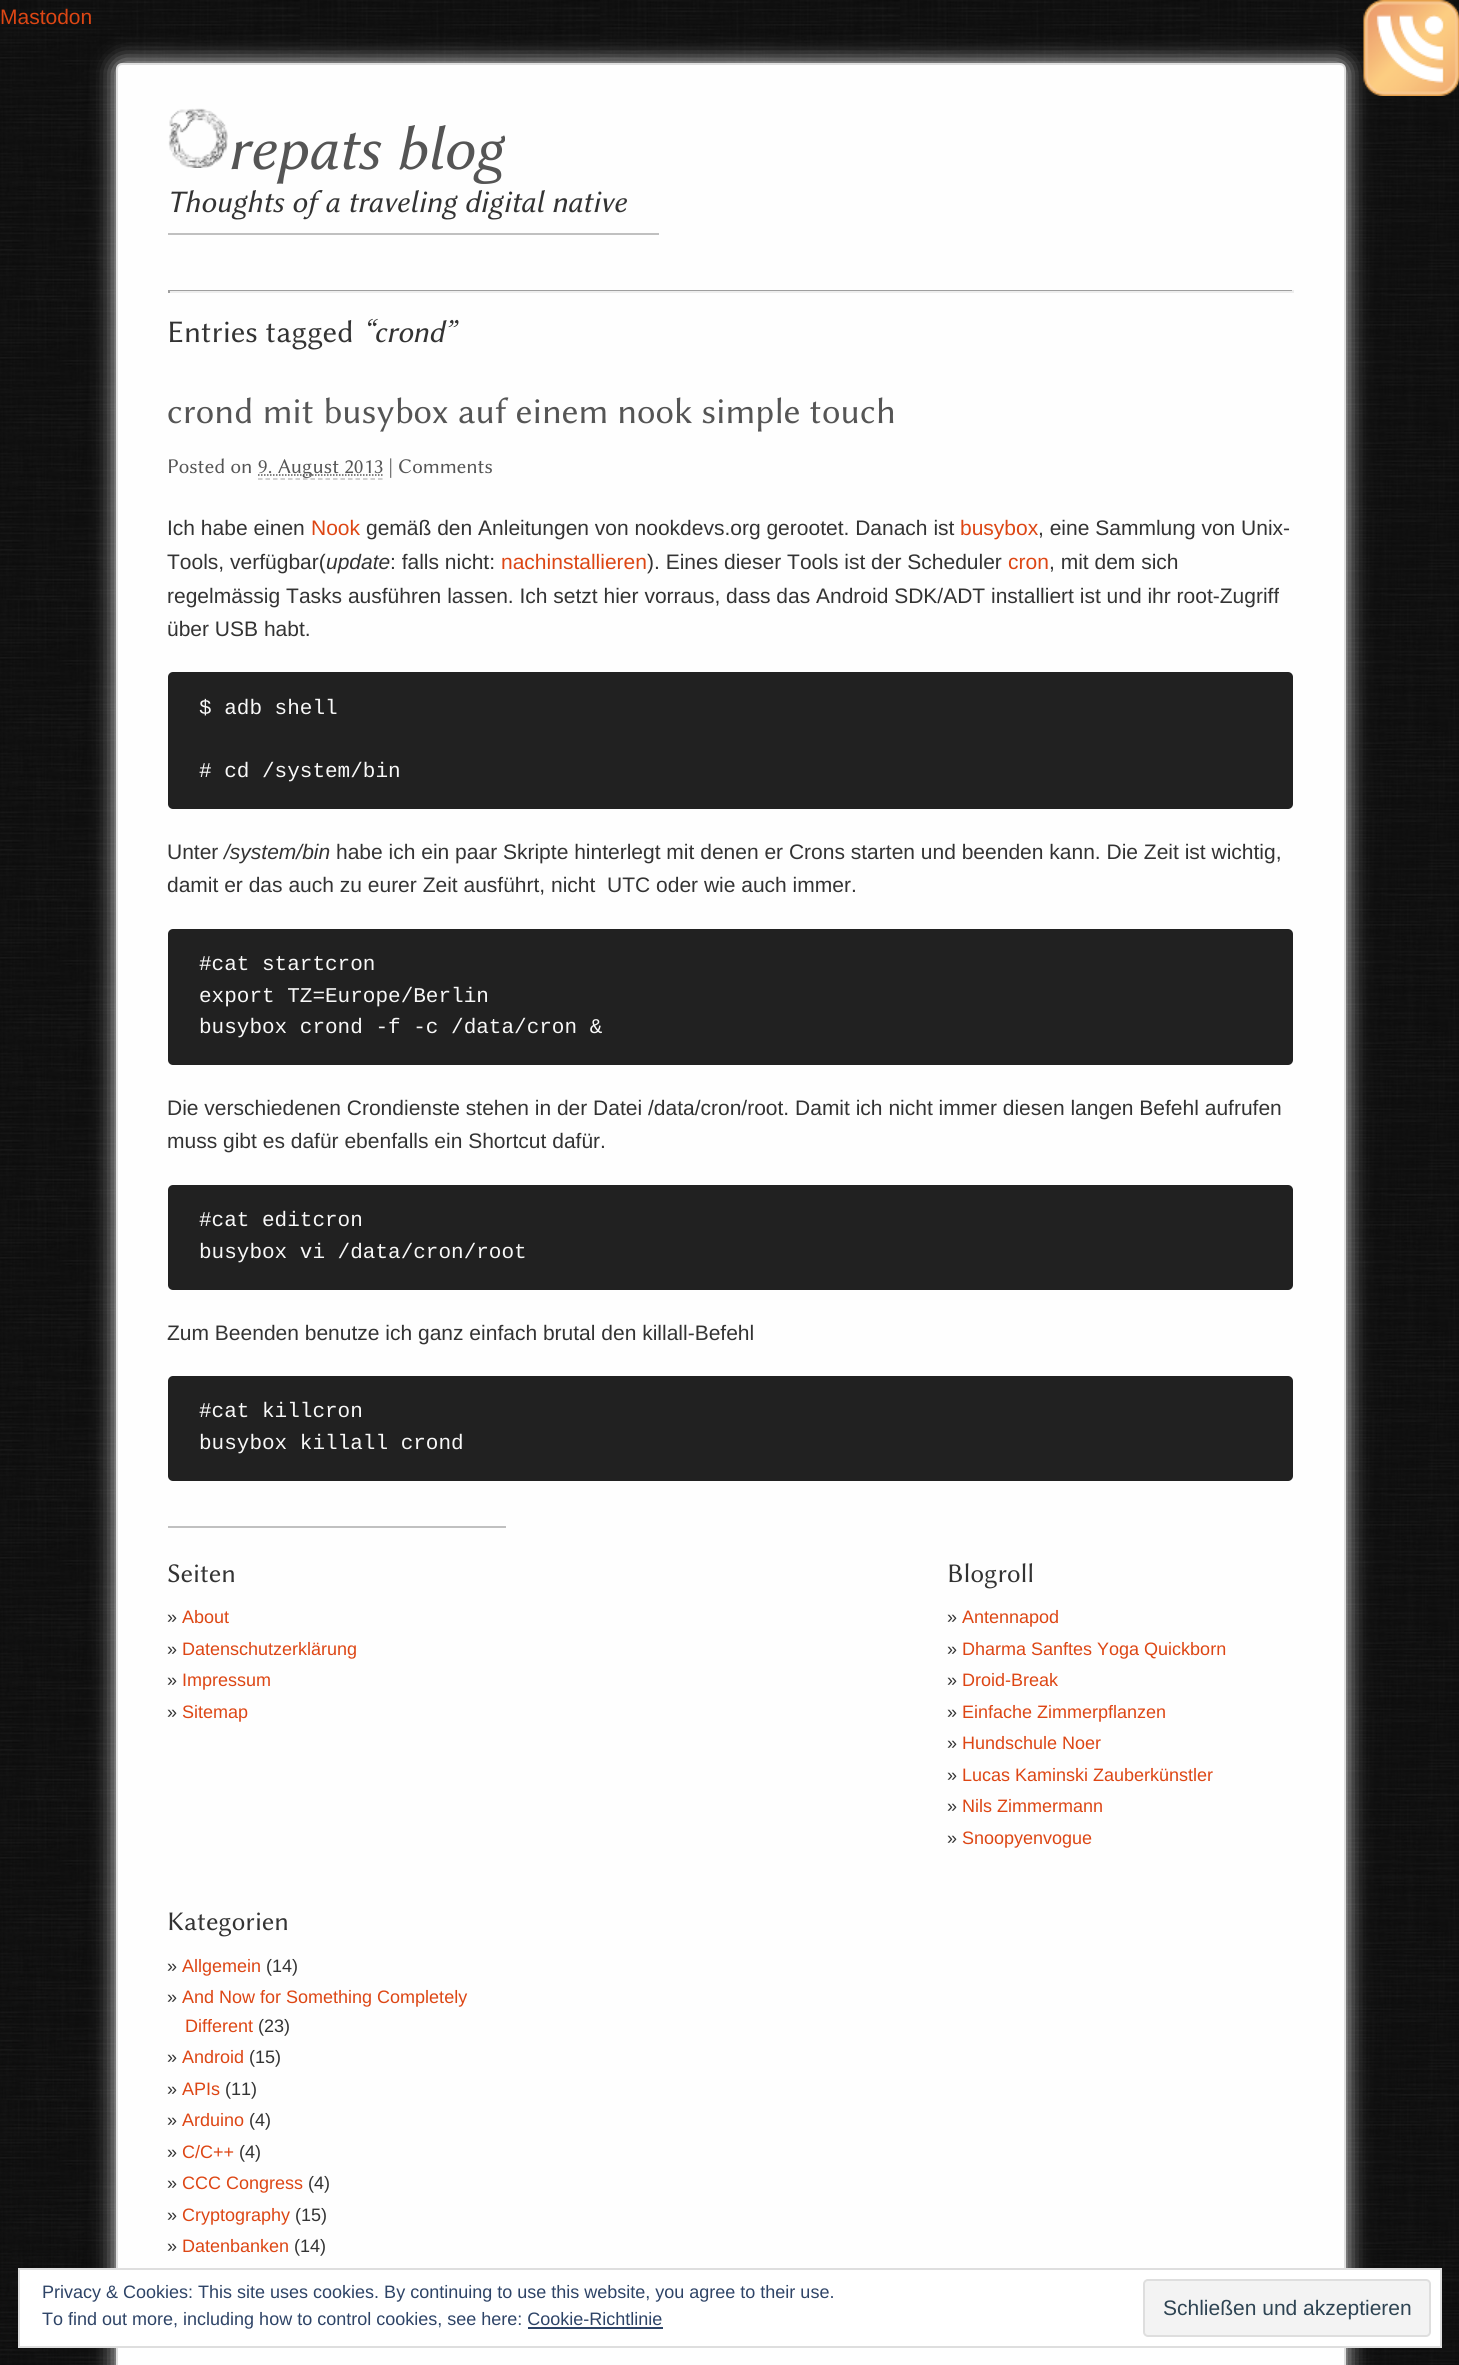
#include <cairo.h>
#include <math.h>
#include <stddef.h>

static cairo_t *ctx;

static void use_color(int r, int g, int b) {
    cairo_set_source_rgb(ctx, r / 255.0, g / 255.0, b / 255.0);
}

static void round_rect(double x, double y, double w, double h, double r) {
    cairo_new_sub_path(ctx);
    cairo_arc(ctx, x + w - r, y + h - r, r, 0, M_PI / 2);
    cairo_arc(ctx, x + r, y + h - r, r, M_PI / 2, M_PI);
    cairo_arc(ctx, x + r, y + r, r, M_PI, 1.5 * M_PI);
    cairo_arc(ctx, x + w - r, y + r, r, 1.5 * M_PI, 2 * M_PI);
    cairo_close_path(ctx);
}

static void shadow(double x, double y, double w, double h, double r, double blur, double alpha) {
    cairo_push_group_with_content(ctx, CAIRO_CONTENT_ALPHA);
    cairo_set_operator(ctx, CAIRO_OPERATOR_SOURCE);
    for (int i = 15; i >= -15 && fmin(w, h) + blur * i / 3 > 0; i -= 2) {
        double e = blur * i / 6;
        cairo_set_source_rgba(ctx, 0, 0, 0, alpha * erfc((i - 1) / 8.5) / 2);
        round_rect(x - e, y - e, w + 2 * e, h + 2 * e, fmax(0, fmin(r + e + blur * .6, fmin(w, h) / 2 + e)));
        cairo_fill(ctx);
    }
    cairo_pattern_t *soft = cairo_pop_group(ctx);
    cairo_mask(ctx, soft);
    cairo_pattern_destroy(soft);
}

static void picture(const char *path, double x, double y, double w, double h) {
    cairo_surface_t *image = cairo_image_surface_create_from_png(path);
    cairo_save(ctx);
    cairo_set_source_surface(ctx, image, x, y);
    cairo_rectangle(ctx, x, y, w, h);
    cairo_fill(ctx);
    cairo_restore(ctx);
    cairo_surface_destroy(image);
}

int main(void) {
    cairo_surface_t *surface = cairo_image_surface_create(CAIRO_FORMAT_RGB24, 1459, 2365);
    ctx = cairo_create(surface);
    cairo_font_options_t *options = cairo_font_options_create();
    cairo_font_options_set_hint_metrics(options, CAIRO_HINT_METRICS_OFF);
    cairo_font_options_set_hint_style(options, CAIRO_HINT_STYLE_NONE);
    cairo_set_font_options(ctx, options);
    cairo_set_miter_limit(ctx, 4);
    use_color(255, 255, 255);
    cairo_paint(ctx);
    picture("img1.png", 0, 0, 1459, 2365);
    cairo_select_font_face(ctx, "Liberation Sans", CAIRO_FONT_SLANT_NORMAL, CAIRO_FONT_WEIGHT_NORMAL);
    cairo_set_font_size(ctx, 21);
    use_color(221, 70, 20);
    cairo_move_to(ctx, 0, 24);
    cairo_show_text(ctx, "Mastodon");
    use_color(223, 223, 223);
    shadow(116, 63, 1230, 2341, 6, 11, 1);
    picture("img2.png", 1363, 0, 96, 96);
    use_color(254, 254, 254);
    round_rect(117, 64, 1228, 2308, 5);
    cairo_fill_preserve(ctx);
    use_color(223, 223, 223);
    cairo_stroke(ctx);
    picture("img3.png", 168, 108, 60, 60);
    cairo_select_font_face(ctx, "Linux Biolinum", CAIRO_FONT_SLANT_ITALIC, CAIRO_FONT_WEIGHT_NORMAL);
    cairo_set_font_size(ctx, 63);
    use_color(85, 85, 85);
    cairo_move_to(ctx, 227, 169);
    cairo_show_text(ctx, "repats blog");
    cairo_set_font_size(ctx, 31.5);
    use_color(51, 51, 51);
    cairo_move_to(ctx, 167, 212);
    cairo_show_text(ctx, "Thoughts of a traveling digital native");
    use_color(192, 192, 192);
    cairo_rectangle(ctx, 168, 233, 491, 2);
    cairo_fill(ctx);
    use_color(159, 159, 159);
    cairo_rectangle(ctx, 168, 290, 1125, 1);
    cairo_fill(ctx);
    use_color(238, 238, 238);
    cairo_rectangle(ctx, 1292, 290, 2, 3);
    cairo_fill(ctx);
    cairo_rectangle(ctx, 168, 291, 1125, 2);
    cairo_fill(ctx);
    use_color(159, 159, 159);
    cairo_rectangle(ctx, 168, 290, 2, 3);
    cairo_fill(ctx);
    cairo_select_font_face(ctx, "Linux Biolinum", CAIRO_FONT_SLANT_NORMAL, CAIRO_FONT_WEIGHT_NORMAL);
    use_color(51, 51, 51);
    cairo_move_to(ctx, 167, 342);
    cairo_show_text(ctx, "Entries tagged");
    cairo_select_font_face(ctx, "Linux Biolinum", CAIRO_FONT_SLANT_ITALIC, CAIRO_FONT_WEIGHT_NORMAL);
    cairo_move_to(ctx, 362, 342);
    cairo_show_text(ctx, "“crond”");
    cairo_select_font_face(ctx, "Linux Biolinum", CAIRO_FONT_SLANT_NORMAL, CAIRO_FONT_WEIGHT_NORMAL);
    cairo_set_font_size(ctx, 36.75);
    use_color(85, 85, 85);
    cairo_move_to(ctx, 167, 423);
    cairo_show_text(ctx, "crond mit busybox auf einem nook simple touch");
    cairo_set_font_size(ctx, 21);
    cairo_move_to(ctx, 167, 473);
    cairo_show_text(ctx, "Posted on");
    cairo_new_path(ctx);
    cairo_move_to(ctx, 258, 475);
    cairo_line_to(ctx, 383, 475);
    cairo_set_line_width(ctx, 1.5);
    cairo_set_dash(ctx, (double[]){1.5, 1.5}, 2, 0);
    cairo_stroke(ctx);
    cairo_move_to(ctx, 258, 473);
    cairo_show_text(ctx, "9. August 2013 | Comments");
    cairo_new_path(ctx);
    cairo_move_to(ctx, 258, 479);
    cairo_line_to(ctx, 382.5, 479);
    use_color(192, 192, 192);
    cairo_set_dash(ctx, (double[]){4.5, 3}, 2, 0);
    cairo_stroke(ctx);
    cairo_select_font_face(ctx, "Liberation Sans", CAIRO_FONT_SLANT_NORMAL, CAIRO_FONT_WEIGHT_NORMAL);
    use_color(51, 51, 51);
    cairo_move_to(ctx, 167, 535);
    cairo_show_text(ctx, "Ich habe einen");
    use_color(221, 70, 20);
    cairo_move_to(ctx, 311, 535);
    cairo_show_text(ctx, "Nook");
    use_color(51, 51, 51);
    cairo_move_to(ctx, 366, 535);
    cairo_show_text(ctx, "gemäß den Anleitungen von nookdevs.org gerootet. Danach ist");
    use_color(221, 70, 20);
    cairo_move_to(ctx, 960, 535);
    cairo_show_text(ctx, "busybox");
    use_color(51, 51, 51);
    cairo_move_to(ctx, 1038, 535);
    cairo_show_text(ctx, ", eine Sammlung von Unix-");
    cairo_move_to(ctx, 167, 569);
    cairo_show_text(ctx, "Tools, verfügbar(");
    cairo_select_font_face(ctx, "Liberation Sans", CAIRO_FONT_SLANT_ITALIC, CAIRO_FONT_WEIGHT_NORMAL);
    cairo_move_to(ctx, 326, 569);
    cairo_show_text(ctx, "update");
    cairo_select_font_face(ctx, "Liberation Sans", CAIRO_FONT_SLANT_NORMAL, CAIRO_FONT_WEIGHT_NORMAL);
    cairo_move_to(ctx, 390, 569);
    cairo_show_text(ctx, ": falls nicht:");
    use_color(221, 70, 20);
    cairo_move_to(ctx, 501, 569);
    cairo_show_text(ctx, "nachinstallieren");
    use_color(51, 51, 51);
    cairo_move_to(ctx, 647, 569);
    cairo_show_text(ctx, "). Eines dieser Tools ist der Scheduler");
    use_color(221, 70, 20);
    cairo_move_to(ctx, 1008, 569);
    cairo_show_text(ctx, "cron");
    use_color(51, 51, 51);
    cairo_move_to(ctx, 1049, 569);
    cairo_show_text(ctx, ", mit dem sich");
    cairo_move_to(ctx, 167, 603);
    cairo_show_text(ctx, "regelmässig Tasks ausführen lassen. Ich setzt hier vorraus, dass das Android SDK/ADT installiert ist und ihr root-Zugriff");
    cairo_move_to(ctx, 167, 636);
    cairo_show_text(ctx, "über USB habt.");
    use_color(33, 33, 33);
    round_rect(168, 672, 1125, 137, 5);
    cairo_fill(ctx);
    cairo_select_font_face(ctx, "Liberation Mono", CAIRO_FONT_SLANT_NORMAL, CAIRO_FONT_WEIGHT_NORMAL);
    use_color(248, 248, 248);
    cairo_move_to(ctx, 199, 714);
    cairo_show_text(ctx, "$ adb shell");
    cairo_move_to(ctx, 199, 777);
    cairo_show_text(ctx, "# cd /system/bin");
    cairo_select_font_face(ctx, "Liberation Sans", CAIRO_FONT_SLANT_NORMAL, CAIRO_FONT_WEIGHT_NORMAL);
    use_color(51, 51, 51);
    cairo_move_to(ctx, 167, 859);
    cairo_show_text(ctx, "Unter");
    cairo_select_font_face(ctx, "Liberation Sans", CAIRO_FONT_SLANT_ITALIC, CAIRO_FONT_WEIGHT_NORMAL);
    cairo_move_to(ctx, 224, 859);
    cairo_show_text(ctx, "/system/bin");
    cairo_select_font_face(ctx, "Liberation Sans", CAIRO_FONT_SLANT_NORMAL, CAIRO_FONT_WEIGHT_NORMAL);
    cairo_move_to(ctx, 336, 859);
    cairo_show_text(ctx, "habe ich ein paar Skripte hinterlegt mit denen er Crons starten und beenden kann. Die Zeit ist wichtig,");
    cairo_move_to(ctx, 167, 892);
    cairo_show_text(ctx, "damit er das auch zu eurer Zeit ausführt, nicht  UTC oder wie auch immer.");
    use_color(33, 33, 33);
    round_rect(168, 929, 1125, 136, 5);
    cairo_fill(ctx);
    cairo_select_font_face(ctx, "Liberation Mono", CAIRO_FONT_SLANT_NORMAL, CAIRO_FONT_WEIGHT_NORMAL);
    use_color(248, 248, 248);
    cairo_move_to(ctx, 199, 970);
    cairo_show_text(ctx, "#cat startcron");
    cairo_move_to(ctx, 199, 1002);
    cairo_show_text(ctx, "export TZ=Europe/Berlin");
    cairo_move_to(ctx, 199, 1033);
    cairo_show_text(ctx, "busybox crond -f -c /data/cron &");
    cairo_select_font_face(ctx, "Liberation Sans", CAIRO_FONT_SLANT_NORMAL, CAIRO_FONT_WEIGHT_NORMAL);
    use_color(51, 51, 51);
    cairo_move_to(ctx, 167, 1115);
    cairo_show_text(ctx, "Die verschiedenen Crondienste stehen in der Datei /data/cron/root. Damit ich nicht immer diesen langen Befehl aufrufen");
    cairo_move_to(ctx, 167, 1148);
    cairo_show_text(ctx, "muss gibt es dafür ebenfalls ein Shortcut dafür.");
    use_color(33, 33, 33);
    round_rect(168, 1185, 1125, 105, 5);
    cairo_fill(ctx);
    cairo_select_font_face(ctx, "Liberation Mono", CAIRO_FONT_SLANT_NORMAL, CAIRO_FONT_WEIGHT_NORMAL);
    use_color(248, 248, 248);
    cairo_move_to(ctx, 199, 1226);
    cairo_show_text(ctx, "#cat editcron");
    cairo_move_to(ctx, 199, 1258);
    cairo_show_text(ctx, "busybox vi /data/cron/root");
    cairo_select_font_face(ctx, "Liberation Sans", CAIRO_FONT_SLANT_NORMAL, CAIRO_FONT_WEIGHT_NORMAL);
    use_color(51, 51, 51);
    cairo_move_to(ctx, 167, 1340);
    cairo_show_text(ctx, "Zum Beenden benutze ich ganz einfach brutal den killall-Befehl");
    use_color(33, 33, 33);
    round_rect(168, 1376, 1125, 105, 5);
    cairo_fill(ctx);
    cairo_select_font_face(ctx, "Liberation Mono", CAIRO_FONT_SLANT_NORMAL, CAIRO_FONT_WEIGHT_NORMAL);
    use_color(248, 248, 248);
    cairo_move_to(ctx, 199, 1417);
    cairo_show_text(ctx, "#cat killcron");
    cairo_move_to(ctx, 199, 1449);
    cairo_show_text(ctx, "busybox killall crond");
    use_color(192, 192, 192);
    cairo_rectangle(ctx, 168, 1526, 338, 2);
    cairo_fill(ctx);
    cairo_select_font_face(ctx, "Linux Biolinum", CAIRO_FONT_SLANT_NORMAL, CAIRO_FONT_WEIGHT_NORMAL);
    cairo_set_font_size(ctx, 27);
    use_color(51, 51, 51);
    cairo_move_to(ctx, 167, 1582);
    cairo_show_text(ctx, "Seiten");
    cairo_select_font_face(ctx, "Liberation Sans", CAIRO_FONT_SLANT_NORMAL, CAIRO_FONT_WEIGHT_NORMAL);
    cairo_set_font_size(ctx, 18);
    cairo_move_to(ctx, 167, 1623);
    cairo_show_text(ctx, "»");
    use_color(221, 70, 20);
    cairo_move_to(ctx, 182, 1623);
    cairo_show_text(ctx, "About");
    use_color(51, 51, 51);
    cairo_move_to(ctx, 167, 1655);
    cairo_show_text(ctx, "»");
    use_color(221, 70, 20);
    cairo_move_to(ctx, 182, 1655);
    cairo_show_text(ctx, "Datenschutzerklärung");
    use_color(51, 51, 51);
    cairo_move_to(ctx, 167, 1686);
    cairo_show_text(ctx, "»");
    use_color(221, 70, 20);
    cairo_move_to(ctx, 182, 1686);
    cairo_show_text(ctx, "Impressum");
    use_color(51, 51, 51);
    cairo_move_to(ctx, 167, 1718);
    cairo_show_text(ctx, "»");
    use_color(221, 70, 20);
    cairo_move_to(ctx, 182, 1718);
    cairo_show_text(ctx, "Sitemap");
    cairo_select_font_face(ctx, "Linux Biolinum", CAIRO_FONT_SLANT_NORMAL, CAIRO_FONT_WEIGHT_NORMAL);
    cairo_set_font_size(ctx, 27);
    use_color(51, 51, 51);
    cairo_move_to(ctx, 947, 1582);
    cairo_show_text(ctx, "Blogroll");
    cairo_select_font_face(ctx, "Liberation Sans", CAIRO_FONT_SLANT_NORMAL, CAIRO_FONT_WEIGHT_NORMAL);
    cairo_set_font_size(ctx, 18);
    cairo_move_to(ctx, 947, 1623);
    cairo_show_text(ctx, "»");
    use_color(221, 70, 20);
    cairo_move_to(ctx, 962, 1623);
    cairo_show_text(ctx, "Antennapod");
    use_color(51, 51, 51);
    cairo_move_to(ctx, 947, 1655);
    cairo_show_text(ctx, "»");
    use_color(221, 70, 20);
    cairo_move_to(ctx, 962, 1655);
    cairo_show_text(ctx, "Dharma Sanftes Yoga Quickborn");
    use_color(51, 51, 51);
    cairo_move_to(ctx, 947, 1686);
    cairo_show_text(ctx, "»");
    use_color(221, 70, 20);
    cairo_move_to(ctx, 962, 1686);
    cairo_show_text(ctx, "Droid-Break");
    use_color(51, 51, 51);
    cairo_move_to(ctx, 947, 1718);
    cairo_show_text(ctx, "»");
    use_color(221, 70, 20);
    cairo_move_to(ctx, 962, 1718);
    cairo_show_text(ctx, "Einfache Zimmerpflanzen");
    use_color(51, 51, 51);
    cairo_move_to(ctx, 947, 1749);
    cairo_show_text(ctx, "»");
    use_color(221, 70, 20);
    cairo_move_to(ctx, 962, 1749);
    cairo_show_text(ctx, "Hundschule Noer");
    use_color(51, 51, 51);
    cairo_move_to(ctx, 947, 1781);
    cairo_show_text(ctx, "»");
    use_color(221, 70, 20);
    cairo_move_to(ctx, 962, 1781);
    cairo_show_text(ctx, "Lucas Kaminski Zauberkünstler");
    use_color(51, 51, 51);
    cairo_move_to(ctx, 947, 1812);
    cairo_show_text(ctx, "»");
    use_color(221, 70, 20);
    cairo_move_to(ctx, 962, 1812);
    cairo_show_text(ctx, "Nils Zimmermann");
    use_color(51, 51, 51);
    cairo_move_to(ctx, 947, 1844);
    cairo_show_text(ctx, "»");
    use_color(221, 70, 20);
    cairo_move_to(ctx, 962, 1844);
    cairo_show_text(ctx, "Snoopyenvogue");
    cairo_select_font_face(ctx, "Linux Biolinum", CAIRO_FONT_SLANT_NORMAL, CAIRO_FONT_WEIGHT_NORMAL);
    cairo_set_font_size(ctx, 27);
    use_color(51, 51, 51);
    cairo_move_to(ctx, 167, 1930);
    cairo_show_text(ctx, "Kategorien");
    cairo_select_font_face(ctx, "Liberation Sans", CAIRO_FONT_SLANT_NORMAL, CAIRO_FONT_WEIGHT_NORMAL);
    cairo_set_font_size(ctx, 18);
    cairo_move_to(ctx, 167, 1972);
    cairo_show_text(ctx, "»");
    use_color(221, 70, 20);
    cairo_move_to(ctx, 182, 1972);
    cairo_show_text(ctx, "Allgemein");
    use_color(51, 51, 51);
    cairo_move_to(ctx, 266, 1972);
    cairo_show_text(ctx, "(14)");
    cairo_move_to(ctx, 167, 2003);
    cairo_show_text(ctx, "»");
    use_color(221, 70, 20);
    cairo_move_to(ctx, 182, 2003);
    cairo_show_text(ctx, "And Now for Something Completely");
    cairo_move_to(ctx, 185, 2032);
    cairo_show_text(ctx, "Different");
    use_color(51, 51, 51);
    cairo_move_to(ctx, 258, 2032);
    cairo_show_text(ctx, "(23)");
    cairo_move_to(ctx, 167, 2063);
    cairo_show_text(ctx, "»");
    use_color(221, 70, 20);
    cairo_move_to(ctx, 182, 2063);
    cairo_show_text(ctx, "Android");
    use_color(51, 51, 51);
    cairo_move_to(ctx, 249, 2063);
    cairo_show_text(ctx, "(15)");
    cairo_move_to(ctx, 167, 2095);
    cairo_show_text(ctx, "»");
    use_color(221, 70, 20);
    cairo_move_to(ctx, 182, 2095);
    cairo_show_text(ctx, "APIs");
    use_color(51, 51, 51);
    cairo_move_to(ctx, 225, 2095);
    cairo_show_text(ctx, "(11)");
    cairo_move_to(ctx, 167, 2126);
    cairo_show_text(ctx, "»");
    use_color(221, 70, 20);
    cairo_move_to(ctx, 182, 2126);
    cairo_show_text(ctx, "Arduino");
    use_color(51, 51, 51);
    cairo_move_to(ctx, 249, 2126);
    cairo_show_text(ctx, "(4)");
    cairo_move_to(ctx, 167, 2158);
    cairo_show_text(ctx, "»");
    use_color(221, 70, 20);
    cairo_move_to(ctx, 182, 2158);
    cairo_show_text(ctx, "C/C++");
    use_color(51, 51, 51);
    cairo_move_to(ctx, 239, 2158);
    cairo_show_text(ctx, "(4)");
    cairo_move_to(ctx, 167, 2189);
    cairo_show_text(ctx, "»");
    use_color(221, 70, 20);
    cairo_move_to(ctx, 182, 2189);
    cairo_show_text(ctx, "CCC Congress");
    use_color(51, 51, 51);
    cairo_move_to(ctx, 308, 2189);
    cairo_show_text(ctx, "(4)");
    cairo_move_to(ctx, 167, 2221);
    cairo_show_text(ctx, "»");
    use_color(221, 70, 20);
    cairo_move_to(ctx, 182, 2221);
    cairo_show_text(ctx, "Cryptography");
    use_color(51, 51, 51);
    cairo_move_to(ctx, 295, 2221);
    cairo_show_text(ctx, "(15)");
    cairo_move_to(ctx, 167, 2252);
    cairo_show_text(ctx, "»");
    use_color(221, 70, 20);
    cairo_move_to(ctx, 182, 2252);
    cairo_show_text(ctx, "Datenbanken");
    use_color(51, 51, 51);
    cairo_move_to(ctx, 294, 2252);
    cairo_show_text(ctx, "(14)");
    use_color(255, 255, 255);
    cairo_rectangle(ctx, 19, 2269, 1422, 78);
    cairo_fill_preserve(ctx);
    use_color(222, 222, 222);
    cairo_set_line_width(ctx, 2);
    cairo_set_dash(ctx, NULL, 0, 0);
    cairo_stroke(ctx);
    use_color(46, 68, 103);
    cairo_move_to(ctx, 42, 2298);
    cairo_show_text(ctx, "Privacy & Cookies: This site uses cookies. By continuing to use this website, you agree to their use.");
    cairo_move_to(ctx, 42, 2325);
    cairo_show_text(ctx, "To find out more, including how to control cookies, see here: Cookie-Richtlinie");
    use_color(243, 243, 243);
    round_rect(1144, 2280, 286, 56, 4);
    cairo_fill_preserve(ctx);
    use_color(222, 222, 222);
    cairo_stroke(ctx);
    cairo_set_font_size(ctx, 21);
    use_color(46, 68, 83);
    cairo_move_to(ctx, 1163, 2315);
    cairo_show_text(ctx, "Schließen und akzeptieren");
    use_color(46, 68, 103);
    cairo_rectangle(ctx, 528, 2327, 135, 2);
    cairo_fill(ctx);
    cairo_surface_write_to_png(surface, "result.png");
    cairo_font_options_destroy(options);
    cairo_destroy(ctx);
    cairo_surface_destroy(surface);
    return 0;
}
